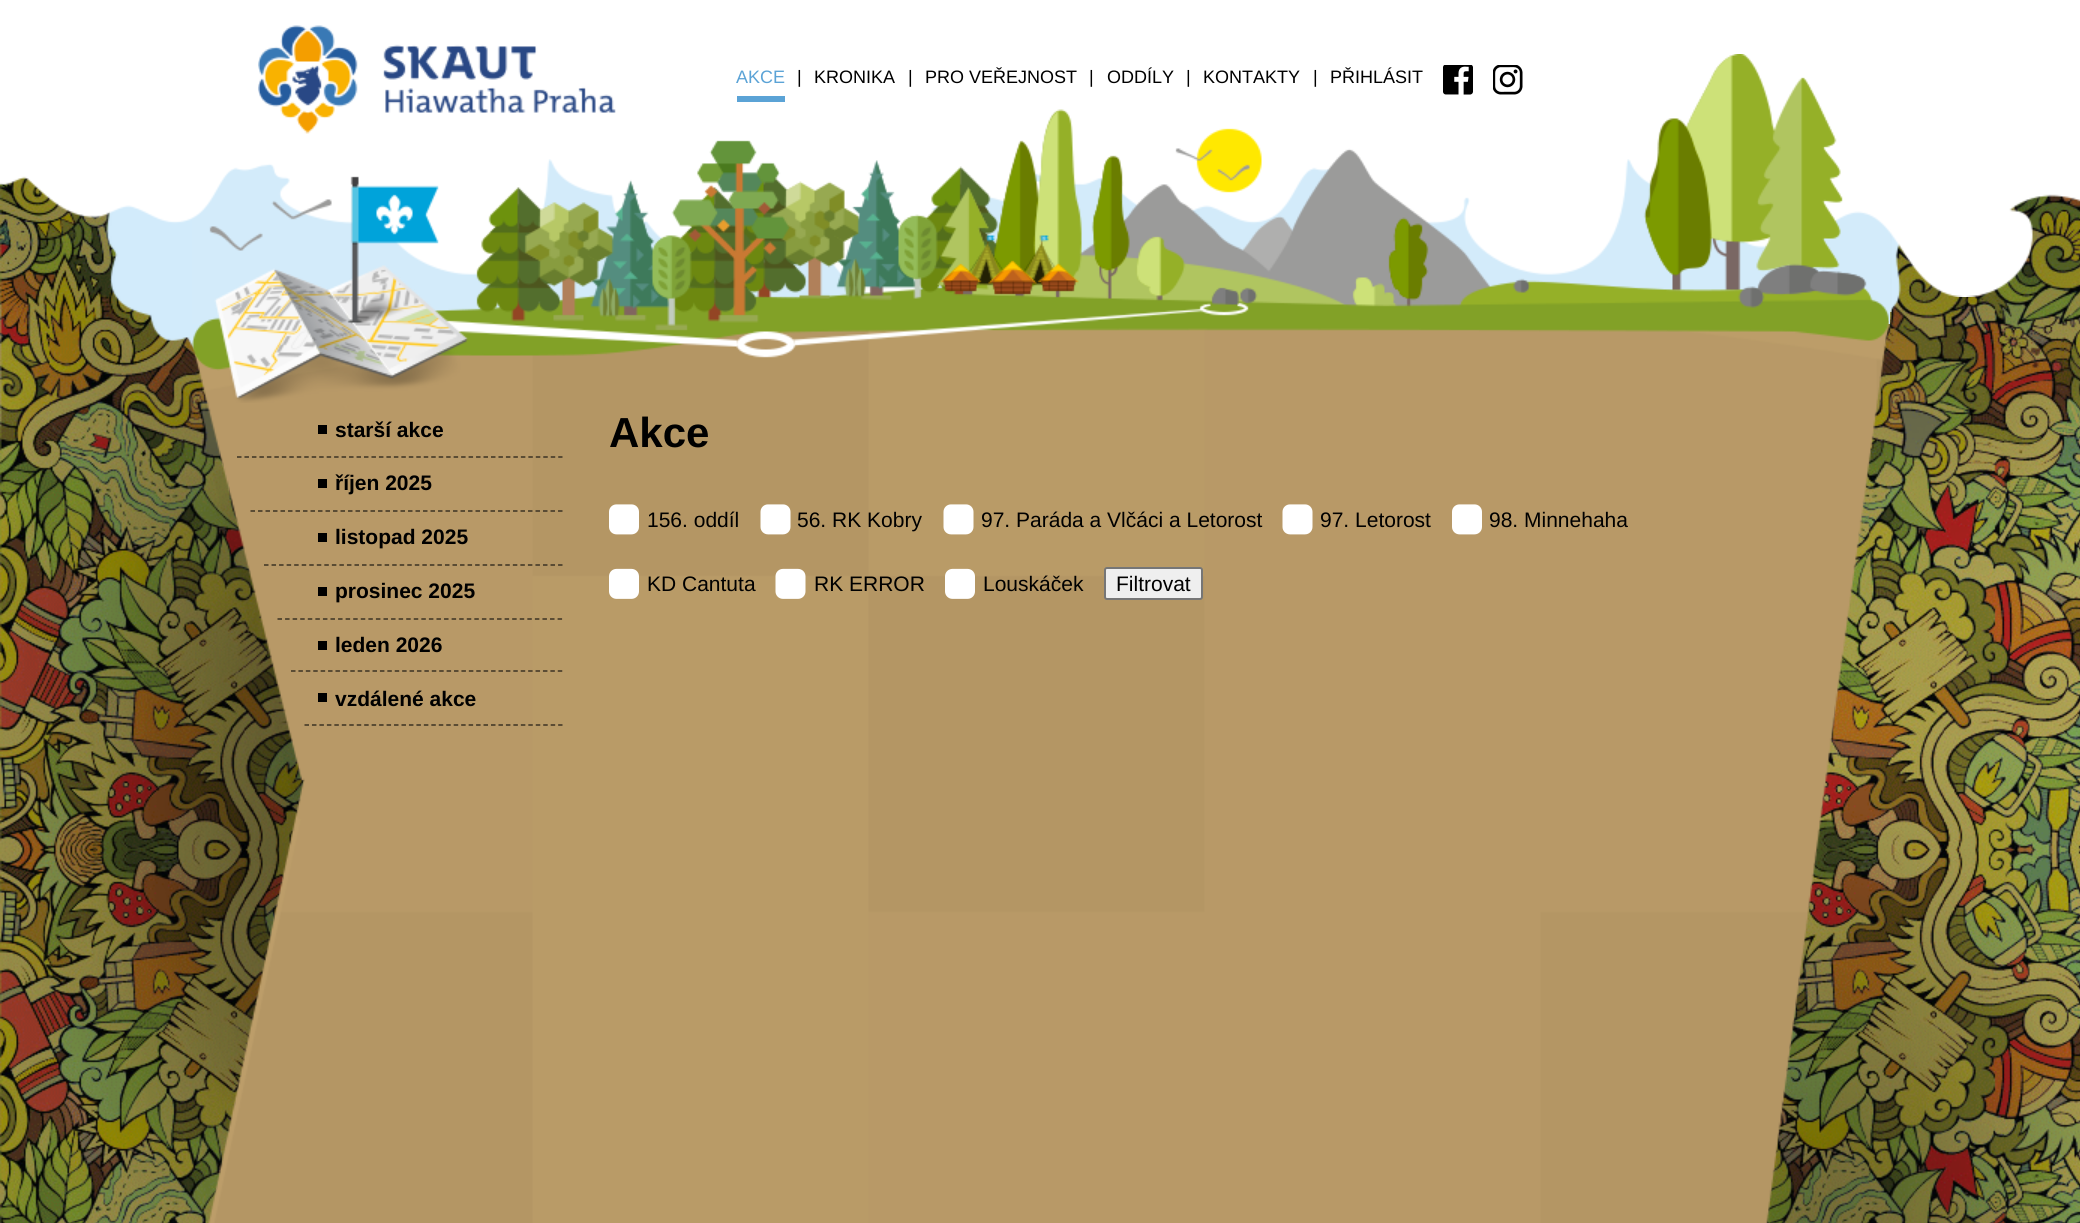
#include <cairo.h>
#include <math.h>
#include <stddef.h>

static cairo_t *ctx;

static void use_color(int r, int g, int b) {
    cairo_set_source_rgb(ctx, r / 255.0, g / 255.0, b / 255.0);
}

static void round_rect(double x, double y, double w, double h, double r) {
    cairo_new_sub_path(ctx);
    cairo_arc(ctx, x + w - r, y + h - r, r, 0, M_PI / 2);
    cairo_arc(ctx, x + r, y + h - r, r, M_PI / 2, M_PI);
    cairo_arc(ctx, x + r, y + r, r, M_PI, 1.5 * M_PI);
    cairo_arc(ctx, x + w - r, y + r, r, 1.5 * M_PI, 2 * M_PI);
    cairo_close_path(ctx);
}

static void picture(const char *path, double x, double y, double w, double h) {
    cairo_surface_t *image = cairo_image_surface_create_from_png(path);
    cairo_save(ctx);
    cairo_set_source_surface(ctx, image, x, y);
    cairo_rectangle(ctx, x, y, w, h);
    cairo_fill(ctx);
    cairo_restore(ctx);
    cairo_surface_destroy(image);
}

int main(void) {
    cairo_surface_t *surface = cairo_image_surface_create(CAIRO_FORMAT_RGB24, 2080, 1223);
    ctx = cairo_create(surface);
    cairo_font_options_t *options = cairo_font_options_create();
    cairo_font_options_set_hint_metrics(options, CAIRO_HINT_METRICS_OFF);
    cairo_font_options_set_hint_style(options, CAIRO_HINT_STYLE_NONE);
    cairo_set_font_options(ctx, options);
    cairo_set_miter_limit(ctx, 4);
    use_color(255, 255, 255);
    cairo_paint(ctx);
    picture("img1.png", 0, 176, 2080, 1047);
    picture("img2.png", 0, 176, 2080, 1047);
    picture("img3.png", 106, 205, 100, 150);
    use_color(211, 235, 250);
    cairo_rectangle(ctx, 192, 159, 1698, 165);
    cairo_fill(ctx);
    picture("img5.png", 1890, 230, 11, 82);
    picture("img9.png", 0, 159, 2080, 138);
    picture("img10.png", 194, 304, 1695, 919);
    picture("img11.png", 205, 304, 1678, 919);
    picture("img4.png", 192, 54, 1697, 349);
    picture("img6.png", 258, 25, 358, 109);
    use_color(91, 163, 214);
    cairo_rectangle(ctx, 737, 96, 48, 6);
    cairo_fill(ctx);
    cairo_select_font_face(ctx, "Liberation Sans", CAIRO_FONT_SLANT_NORMAL, CAIRO_FONT_WEIGHT_NORMAL);
    cairo_set_font_size(ctx, 18);
    cairo_move_to(ctx, 736, 83);
    cairo_show_text(ctx, "AKCE");
    use_color(0, 0, 0);
    cairo_move_to(ctx, 797, 83);
    cairo_show_text(ctx, "|");
    cairo_move_to(ctx, 814, 83);
    cairo_show_text(ctx, "KRONIKA");
    cairo_move_to(ctx, 908, 83);
    cairo_show_text(ctx, "|");
    cairo_move_to(ctx, 925, 83);
    cairo_show_text(ctx, "PRO VEŘEJNOST");
    cairo_move_to(ctx, 1089, 83);
    cairo_show_text(ctx, "|");
    cairo_move_to(ctx, 1107, 83);
    cairo_show_text(ctx, "ODDÍLY");
    cairo_move_to(ctx, 1186, 83);
    cairo_show_text(ctx, "|");
    cairo_move_to(ctx, 1203, 83);
    cairo_show_text(ctx, "KONTAKTY");
    cairo_move_to(ctx, 1313, 83);
    cairo_show_text(ctx, "|");
    cairo_move_to(ctx, 1330, 83);
    cairo_show_text(ctx, "PŘIHLÁSIT");
    picture("img7.png", 1443, 65, 30, 30);
    picture("img8.png", 1493, 65, 30, 30);
    cairo_new_path(ctx);
    cairo_move_to(ctx, 237, 457);
    cairo_line_to(ctx, 562.5, 457);
    use_color(60, 50, 36);
    cairo_set_line_width(ctx, 1.5);
    cairo_set_dash(ctx, (double[]){4.5, 2.97}, 2, 0);
    cairo_stroke(ctx);
    use_color(0, 0, 0);
    cairo_rectangle(ctx, 318, 425, 9, 9);
    cairo_fill(ctx);
    cairo_select_font_face(ctx, "Liberation Sans", CAIRO_FONT_SLANT_NORMAL, CAIRO_FONT_WEIGHT_BOLD);
    cairo_set_font_size(ctx, 21);
    cairo_move_to(ctx, 335, 437);
    cairo_show_text(ctx, "starší akce");
    cairo_new_path(ctx);
    cairo_move_to(ctx, 250.5, 511);
    cairo_line_to(ctx, 562.5, 511);
    use_color(60, 50, 36);
    cairo_set_dash(ctx, (double[]){4.5, 3}, 2, 0);
    cairo_stroke(ctx);
    use_color(0, 0, 0);
    cairo_rectangle(ctx, 318, 479, 9, 9);
    cairo_fill(ctx);
    cairo_move_to(ctx, 335, 490);
    cairo_show_text(ctx, "říjen 2025");
    cairo_new_path(ctx);
    cairo_move_to(ctx, 264, 565);
    cairo_line_to(ctx, 562.5, 565);
    use_color(60, 50, 36);
    cairo_set_dash(ctx, (double[]){4.5, 3.04}, 2, 0);
    cairo_stroke(ctx);
    use_color(0, 0, 0);
    cairo_rectangle(ctx, 318, 533, 9, 9);
    cairo_fill(ctx);
    cairo_move_to(ctx, 335, 544);
    cairo_show_text(ctx, "listopad 2025");
    cairo_new_path(ctx);
    cairo_move_to(ctx, 277.5, 619);
    cairo_line_to(ctx, 562.5, 619);
    use_color(60, 50, 36);
    cairo_set_dash(ctx, (double[]){4.5, 3.07}, 2, 0);
    cairo_stroke(ctx);
    use_color(0, 0, 0);
    cairo_rectangle(ctx, 318, 587, 9, 9);
    cairo_fill(ctx);
    cairo_move_to(ctx, 335, 598);
    cairo_show_text(ctx, "prosinec 2025");
    cairo_new_path(ctx);
    cairo_move_to(ctx, 291, 671);
    cairo_line_to(ctx, 562.5, 671);
    use_color(60, 50, 36);
    cairo_set_dash(ctx, (double[]){4.5, 2.91}, 2, 0);
    cairo_stroke(ctx);
    use_color(0, 0, 0);
    cairo_rectangle(ctx, 318, 641, 9, 9);
    cairo_fill(ctx);
    cairo_move_to(ctx, 335, 652);
    cairo_show_text(ctx, "leden 2026");
    cairo_new_path(ctx);
    cairo_move_to(ctx, 304.5, 725);
    cairo_line_to(ctx, 562.5, 725);
    use_color(60, 50, 36);
    cairo_set_dash(ctx, (double[]){4.5, 2.96}, 2, 0);
    cairo_stroke(ctx);
    use_color(0, 0, 0);
    cairo_rectangle(ctx, 318, 693, 9, 9);
    cairo_fill(ctx);
    cairo_move_to(ctx, 335, 706);
    cairo_show_text(ctx, "vzdálené akce");
    cairo_set_font_size(ctx, 42);
    cairo_move_to(ctx, 609, 447);
    cairo_show_text(ctx, "Akce");
    picture("img12.png", 609, 504, 30, 31);
    cairo_select_font_face(ctx, "Liberation Sans", CAIRO_FONT_SLANT_NORMAL, CAIRO_FONT_WEIGHT_NORMAL);
    cairo_set_font_size(ctx, 21);
    cairo_move_to(ctx, 647, 527);
    cairo_show_text(ctx, "156. oddíl");
    picture("img13.png", 760, 504, 31, 31);
    cairo_move_to(ctx, 797, 527);
    cairo_show_text(ctx, "56. RK Kobry");
    picture("img14.png", 943, 504, 31, 31);
    cairo_move_to(ctx, 981, 527);
    cairo_show_text(ctx, "97. Paráda a Vlčáci a Letorost");
    picture("img15.png", 1282, 504, 31, 31);
    cairo_move_to(ctx, 1320, 527);
    cairo_show_text(ctx, "97. Letorost");
    picture("img16.png", 1452, 504, 30, 31);
    cairo_move_to(ctx, 1489, 527);
    cairo_show_text(ctx, "98. Minnehaha");
    picture("img17.png", 609, 568, 30, 31);
    cairo_move_to(ctx, 647, 591);
    cairo_show_text(ctx, "KD Cantuta");
    picture("img18.png", 775, 568, 31, 31);
    cairo_move_to(ctx, 814, 591);
    cairo_show_text(ctx, "RK ERROR");
    picture("img19.png", 945, 568, 30, 31);
    cairo_move_to(ctx, 983, 591);
    cairo_show_text(ctx, "Louskáček");
    use_color(239, 239, 239);
    round_rect(1105, 568, 97, 31, 2);
    cairo_fill_preserve(ctx);
    use_color(118, 118, 118);
    cairo_set_line_width(ctx, 2);
    cairo_set_dash(ctx, NULL, 0, 0);
    cairo_stroke(ctx);
    use_color(0, 0, 0);
    cairo_move_to(ctx, 1116, 591);
    cairo_show_text(ctx, "Filtrovat");
    cairo_surface_write_to_png(surface, "result.png");
    cairo_font_options_destroy(options);
    cairo_destroy(ctx);
    cairo_surface_destroy(surface);
    return 0;
}
